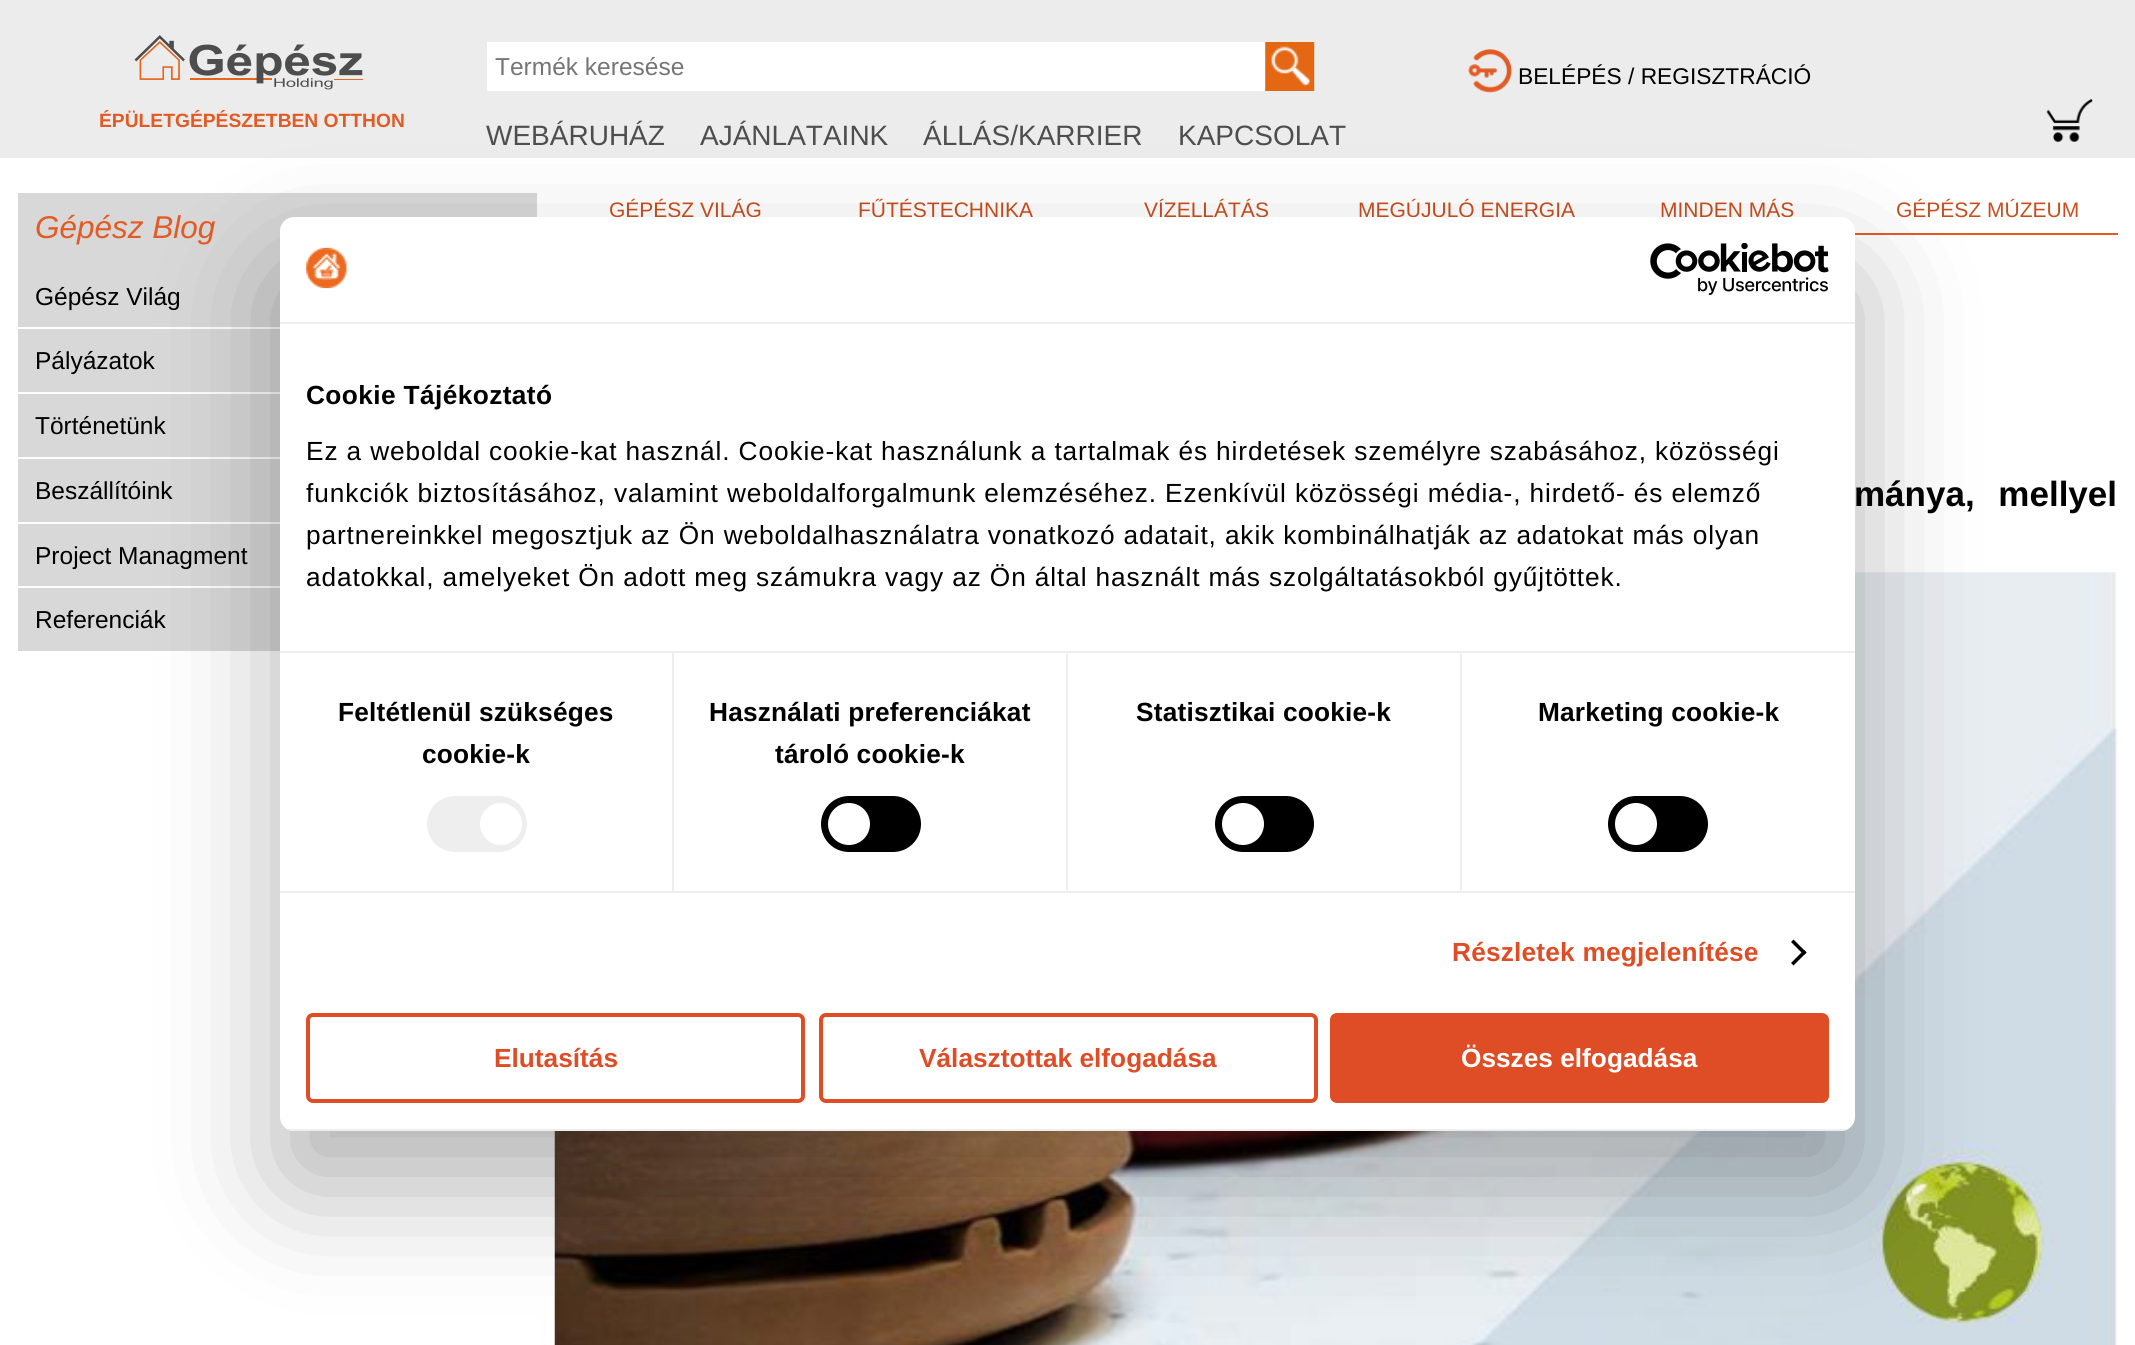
#include <cairo.h>
#include <math.h>
#include <stddef.h>

static cairo_t *ctx;

static void use_color(int r, int g, int b) {
    cairo_set_source_rgb(ctx, r / 255.0, g / 255.0, b / 255.0);
}

static void spaced_text(double x, double y, const char *s, double letter, double word) {
    cairo_move_to(ctx, x, y);
    while (*s) {
        char ch[5] = {0};
        int n = 0;
        do ch[n++] = *s++; while ((*s & 0xC0) == 0x80);
        cairo_show_text(ctx, ch);
        cairo_rel_move_to(ctx, letter + word * (*ch == ' '), 0);
    }
}

static void round_rect(double x, double y, double w, double h, double r) {
    cairo_new_sub_path(ctx);
    cairo_arc(ctx, x + w - r, y + h - r, r, 0, M_PI / 2);
    cairo_arc(ctx, x + r, y + h - r, r, M_PI / 2, M_PI);
    cairo_arc(ctx, x + r, y + r, r, M_PI, 1.5 * M_PI);
    cairo_arc(ctx, x + w - r, y + r, r, 1.5 * M_PI, 2 * M_PI);
    cairo_close_path(ctx);
}

static void shadow(double x, double y, double w, double h, double r, double blur, double alpha) {
    cairo_push_group_with_content(ctx, CAIRO_CONTENT_ALPHA);
    cairo_set_operator(ctx, CAIRO_OPERATOR_SOURCE);
    for (int i = 15; i >= -15 && fmin(w, h) + blur * i / 3 > 0; i -= 2) {
        double e = blur * i / 6;
        cairo_set_source_rgba(ctx, 0, 0, 0, alpha * erfc((i - 1) / 8.5) / 2);
        round_rect(x - e, y - e, w + 2 * e, h + 2 * e, fmax(0, fmin(r + e + blur * .6, fmin(w, h) / 2 + e)));
        cairo_fill(ctx);
    }
    cairo_pattern_t *soft = cairo_pop_group(ctx);
    cairo_mask(ctx, soft);
    cairo_pattern_destroy(soft);
}

static void picture(const char *path, double x, double y, double w, double h) {
    cairo_surface_t *image = cairo_image_surface_create_from_png(path);
    cairo_save(ctx);
    cairo_set_source_surface(ctx, image, x, y);
    cairo_rectangle(ctx, x, y, w, h);
    cairo_fill(ctx);
    cairo_restore(ctx);
    cairo_surface_destroy(image);
}

int main(void) {
    cairo_surface_t *surface = cairo_image_surface_create(CAIRO_FORMAT_RGB24, 2135, 1345);
    ctx = cairo_create(surface);
    cairo_font_options_t *options = cairo_font_options_create();
    cairo_font_options_set_hint_metrics(options, CAIRO_HINT_METRICS_OFF);
    cairo_font_options_set_hint_style(options, CAIRO_HINT_STYLE_NONE);
    cairo_set_font_options(ctx, options);
    cairo_set_miter_limit(ctx, 4);
    use_color(255, 255, 255);
    cairo_paint(ctx);
    use_color(236, 236, 236);
    cairo_rectangle(ctx, 0, 0, 2135, 158);
    cairo_fill(ctx);
    use_color(255, 255, 255);
    cairo_rectangle(ctx, 487, 42, 778, 49);
    cairo_fill(ctx);
    cairo_select_font_face(ctx, "Liberation Sans", CAIRO_FONT_SLANT_NORMAL, CAIRO_FONT_WEIGHT_NORMAL);
    cairo_set_font_size(ctx, 24.5);
    use_color(117, 117, 117);
    cairo_move_to(ctx, 495, 75);
    cairo_show_text(ctx, "Termék keresése");
    picture("img1.png", 1265, 42, 50, 49);
    cairo_set_font_size(ctx, 28);
    use_color(78, 78, 78);
    cairo_move_to(ctx, 486, 145);
    cairo_show_text(ctx, "WEBÁRUHÁZ");
    cairo_move_to(ctx, 700, 145);
    cairo_show_text(ctx, "AJÁNLATAINK");
    cairo_move_to(ctx, 923, 145);
    cairo_show_text(ctx, "ÁLLÁS/KARRIER");
    cairo_move_to(ctx, 1178, 145);
    cairo_show_text(ctx, "KAPCSOLAT");
    picture("img2.png", 1468, 49, 44, 44);
    cairo_set_font_size(ctx, 22.75);
    use_color(0, 0, 0);
    cairo_move_to(ctx, 1518, 84);
    cairo_show_text(ctx, "BELÉPÉS / REGISZTRÁCIÓ");
    picture("img3.png", 2046, 99, 47, 43);
    picture("img4.png", 134, 35, 229, 55);
    cairo_select_font_face(ctx, "Liberation Sans", CAIRO_FONT_SLANT_NORMAL, CAIRO_FONT_WEIGHT_BOLD);
    cairo_set_font_size(ctx, 19.25);
    use_color(227, 91, 36);
    cairo_move_to(ctx, 99, 127);
    cairo_show_text(ctx, "ÉPÜLETGÉPÉSZETBEN OTTHON");
    use_color(216, 216, 216);
    cairo_rectangle(ctx, 18, 193, 519, 458);
    cairo_fill(ctx);
    cairo_select_font_face(ctx, "Liberation Sans", CAIRO_FONT_SLANT_ITALIC, CAIRO_FONT_WEIGHT_NORMAL);
    cairo_set_font_size(ctx, 31.5);
    use_color(227, 91, 36);
    cairo_move_to(ctx, 35, 238);
    cairo_show_text(ctx, "Gépész Blog");
    use_color(255, 255, 255);
    cairo_rectangle(ctx, 18, 327, 262, 2);
    cairo_fill(ctx);
    cairo_select_font_face(ctx, "Liberation Sans", CAIRO_FONT_SLANT_NORMAL, CAIRO_FONT_WEIGHT_NORMAL);
    cairo_set_font_size(ctx, 24.5);
    use_color(0, 0, 0);
    cairo_move_to(ctx, 35, 305);
    cairo_show_text(ctx, "Gépész Világ");
    use_color(255, 255, 255);
    cairo_rectangle(ctx, 18, 392, 262, 2);
    cairo_fill(ctx);
    use_color(0, 0, 0);
    cairo_move_to(ctx, 35, 369);
    cairo_show_text(ctx, "Pályázatok");
    use_color(255, 255, 255);
    cairo_rectangle(ctx, 18, 457, 262, 2);
    cairo_fill(ctx);
    use_color(0, 0, 0);
    cairo_move_to(ctx, 35, 434);
    cairo_show_text(ctx, "Történetünk");
    use_color(255, 255, 255);
    cairo_rectangle(ctx, 18, 522, 262, 2);
    cairo_fill(ctx);
    use_color(0, 0, 0);
    cairo_move_to(ctx, 35, 499);
    cairo_show_text(ctx, "Beszállítóink");
    use_color(255, 255, 255);
    cairo_rectangle(ctx, 18, 586, 262, 2);
    cairo_fill(ctx);
    use_color(0, 0, 0);
    cairo_move_to(ctx, 35, 564);
    cairo_show_text(ctx, "Project Managment");
    cairo_move_to(ctx, 35, 628);
    cairo_show_text(ctx, "Referenciák");
    cairo_set_font_size(ctx, 21);
    use_color(201, 78, 29);
    cairo_move_to(ctx, 609, 217);
    cairo_show_text(ctx, "GÉPÉSZ VILÁG");
    cairo_move_to(ctx, 858, 217);
    cairo_show_text(ctx, "FŰTÉSTECHNIKA");
    cairo_move_to(ctx, 1144, 217);
    cairo_show_text(ctx, "VÍZELLÁTÁS");
    cairo_move_to(ctx, 1358, 217);
    cairo_show_text(ctx, "MEGÚJULÓ ENERGIA");
    cairo_move_to(ctx, 1660, 217);
    cairo_show_text(ctx, "MINDEN MÁS");
    cairo_move_to(ctx, 1896, 217);
    cairo_show_text(ctx, "GÉPÉSZ MÚZEUM");
    use_color(227, 91, 36);
    cairo_rectangle(ctx, 1855, 233, 263, 2);
    cairo_fill(ctx);
    cairo_select_font_face(ctx, "Liberation Sans", CAIRO_FONT_SLANT_NORMAL, CAIRO_FONT_WEIGHT_BOLD);
    cairo_set_font_size(ctx, 35);
    use_color(0, 0, 0);
    spaced_text(1854, 506, "mánya, mellyel", 0, 14);
    picture("img5.png", 554, 572, 1564, 773);
    use_color(0, 0, 0);
    shadow(280, 273, 1575, 914, 14, 59.5, 0.3);
    use_color(255, 255, 255);
    round_rect(280, 217, 1575, 914, 14);
    cairo_fill(ctx);
    use_color(238, 238, 238);
    cairo_rectangle(ctx, 280, 322, 1575, 2);
    cairo_fill(ctx);
    picture("img6.png", 306, 247, 41, 42);
    picture("img7.png", 1650, 243, 179, 52);
    cairo_rectangle(ctx, 280, 651, 1575, 2);
    cairo_fill(ctx);
    cairo_set_font_size(ctx, 26.25);
    use_color(0, 0, 0);
    spaced_text(306, 404, "Cookie Tájékoztató", 0.4, 0);
    cairo_select_font_face(ctx, "Liberation Sans", CAIRO_FONT_SLANT_NORMAL, CAIRO_FONT_WEIGHT_NORMAL);
    spaced_text(306, 460, "Ez a weboldal cookie-kat használ. Cookie-kat használunk a tartalmak és hirdetések személyre szabásához, közösségi", 0.88, 0);
    spaced_text(306, 502, "funkciók biztosításához, valamint weboldalforgalmunk elemzéséhez. Ezenkívül közösségi média-, hirdető- és elemző", 0.88, 0);
    spaced_text(306, 544, "partnereinkkel megosztjuk az Ön weboldalhasználatra vonatkozó adatait, akik kombinálhatják az adatokat más olyan", 0.88, 0);
    spaced_text(306, 586, "adatokkal, amelyeket Ön adott meg számukra vagy az Ön által használt más szolgáltatásokból gyűjtöttek.", 0.88, 0);
    use_color(238, 238, 238);
    cairo_rectangle(ctx, 280, 891, 1575, 2);
    cairo_fill(ctx);
    cairo_rectangle(ctx, 672, 653, 2, 238);
    cairo_fill(ctx);
    cairo_select_font_face(ctx, "Liberation Sans", CAIRO_FONT_SLANT_NORMAL, CAIRO_FONT_WEIGHT_BOLD);
    use_color(0, 0, 0);
    spaced_text(338, 721, "Feltétlenül szükséges", 0.2, 0);
    spaced_text(422, 763, "cookie-k", 0.2, 0);
    use_color(238, 238, 238);
    round_rect(427, 796, 100, 56, 28);
    cairo_fill(ctx);
    use_color(255, 255, 255);
    cairo_arc(ctx, 501, 824, 21, 0, 2 * M_PI);
    cairo_fill(ctx);
    use_color(238, 238, 238);
    cairo_rectangle(ctx, 1066, 653, 2, 238);
    cairo_fill(ctx);
    use_color(0, 0, 0);
    spaced_text(709, 721, "Használati preferenciákat", 0.2, 0);
    spaced_text(775, 763, "tároló cookie-k", 0.2, 0);
    round_rect(821, 796, 100, 56, 28);
    cairo_fill(ctx);
    use_color(255, 255, 255);
    cairo_arc(ctx, 849, 824, 21, 0, 2 * M_PI);
    cairo_fill(ctx);
    use_color(238, 238, 238);
    cairo_rectangle(ctx, 1460, 653, 2, 238);
    cairo_fill(ctx);
    use_color(0, 0, 0);
    spaced_text(1136, 721, "Statisztikai cookie-k", 0.2, 0);
    round_rect(1215, 796, 99, 56, 28);
    cairo_fill(ctx);
    use_color(255, 255, 255);
    cairo_arc(ctx, 1243, 824, 21, 0, 2 * M_PI);
    cairo_fill(ctx);
    use_color(0, 0, 0);
    spaced_text(1538, 721, "Marketing cookie-k", 0.2, 0);
    round_rect(1608, 796, 100, 56, 28);
    cairo_fill(ctx);
    use_color(255, 255, 255);
    cairo_arc(ctx, 1636, 824, 21, 0, 2 * M_PI);
    cairo_fill(ctx);
    use_color(223, 77, 38);
    spaced_text(1452, 961, "Részletek megjelenítése", 0.2, 0);
    use_color(0, 0, 0);
    cairo_new_path(ctx);
    cairo_move_to(ctx, 1793.5, 939.5);
    cairo_line_to(ctx, 1806.5, 952.5);
    cairo_line_to(ctx, 1804, 955);
    cairo_line_to(ctx, 1791, 942);
    cairo_close_path(ctx);
    cairo_fill(ctx);
    cairo_new_path(ctx);
    cairo_move_to(ctx, 1804, 950);
    cairo_line_to(ctx, 1806.5, 952.5);
    cairo_line_to(ctx, 1793.5, 965.5);
    cairo_line_to(ctx, 1791, 963);
    cairo_close_path(ctx);
    cairo_fill(ctx);
    cairo_save(ctx);
    round_rect(280, 217, 1575, 914, 14);
    cairo_clip(ctx);
    use_color(238, 238, 238);
    cairo_rectangle(ctx, 280, 1129, 1575, 2);
    cairo_fill(ctx);
    cairo_restore(ctx);
    round_rect(308, 1015, 495, 86, 5);
    use_color(223, 77, 38);
    cairo_set_line_width(ctx, 4);
    cairo_stroke(ctx);
    cairo_move_to(ctx, 494, 1067);
    cairo_show_text(ctx, "Elutasítás");
    round_rect(821, 1015, 495, 86, 5);
    cairo_stroke(ctx);
    cairo_move_to(ctx, 919, 1067);
    cairo_show_text(ctx, "Választottak elfogadása");
    round_rect(1332, 1015, 495, 86, 5);
    cairo_fill_preserve(ctx);
    cairo_stroke(ctx);
    use_color(255, 255, 255);
    cairo_move_to(ctx, 1461, 1067);
    cairo_show_text(ctx, "Összes elfogadása");
    cairo_surface_write_to_png(surface, "result.png");
    cairo_font_options_destroy(options);
    cairo_destroy(ctx);
    cairo_surface_destroy(surface);
    return 0;
}
